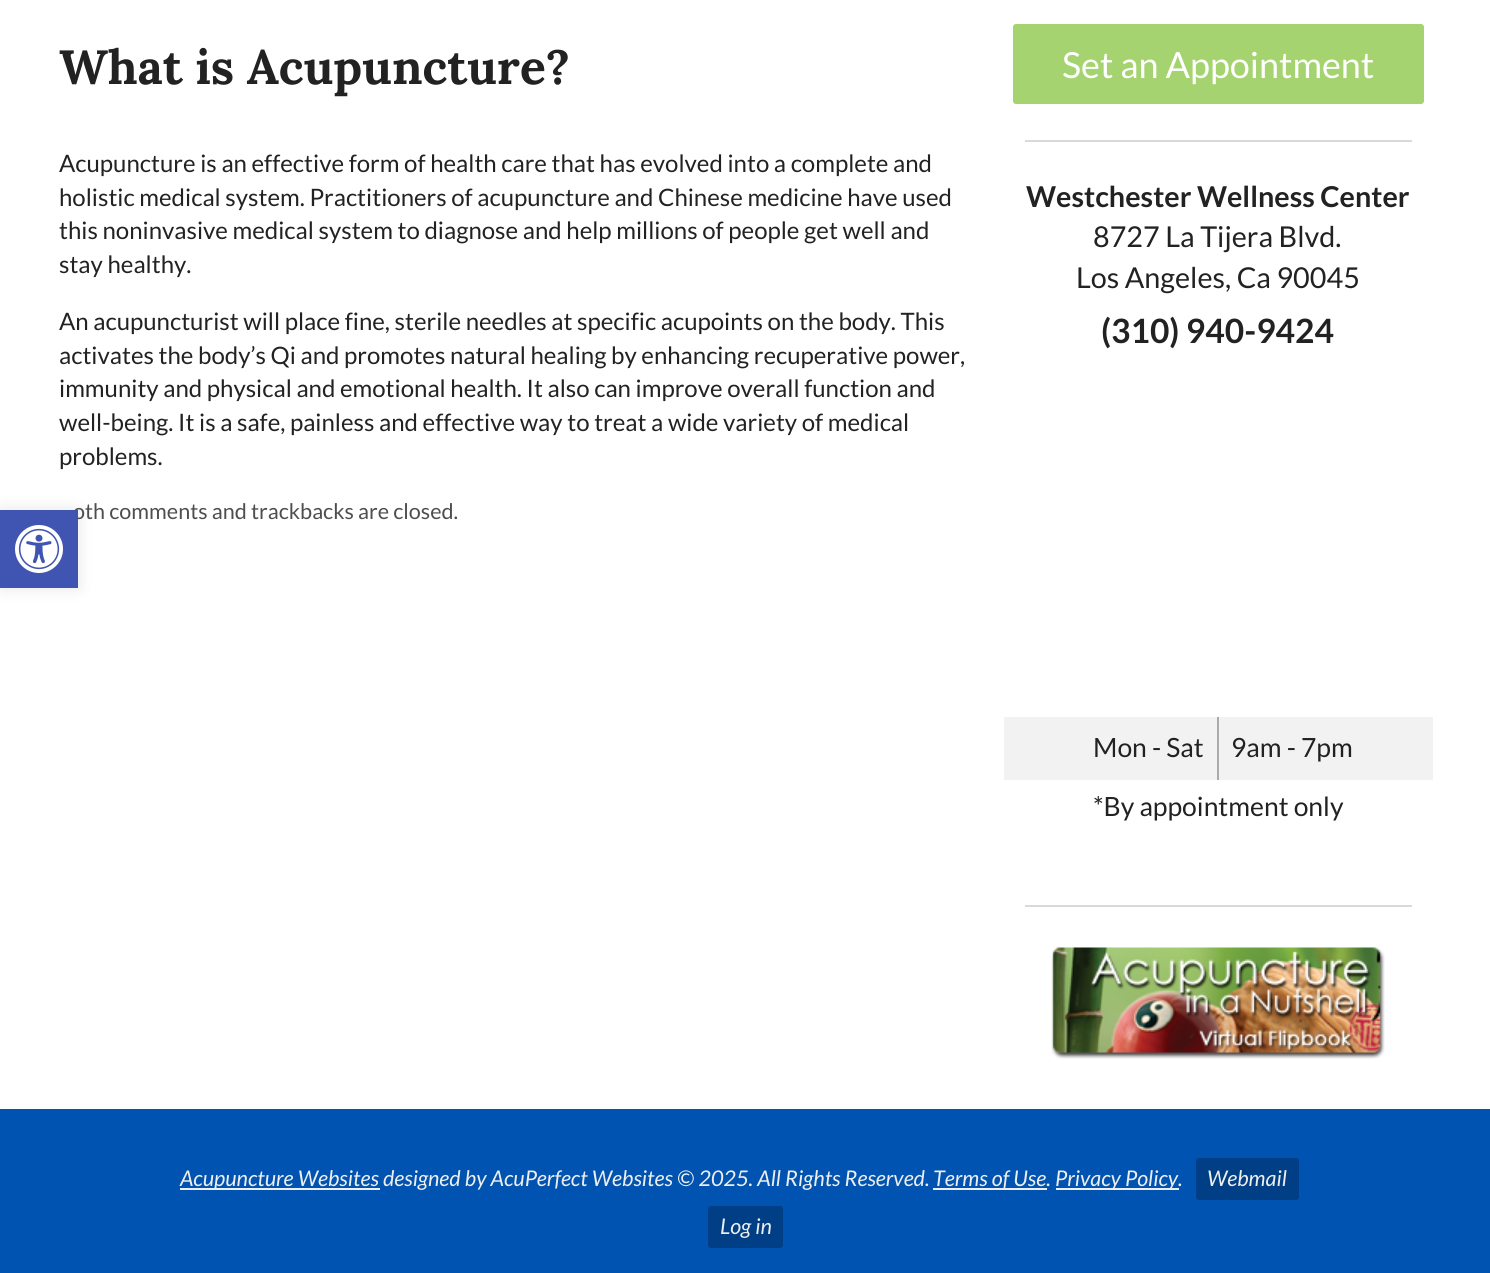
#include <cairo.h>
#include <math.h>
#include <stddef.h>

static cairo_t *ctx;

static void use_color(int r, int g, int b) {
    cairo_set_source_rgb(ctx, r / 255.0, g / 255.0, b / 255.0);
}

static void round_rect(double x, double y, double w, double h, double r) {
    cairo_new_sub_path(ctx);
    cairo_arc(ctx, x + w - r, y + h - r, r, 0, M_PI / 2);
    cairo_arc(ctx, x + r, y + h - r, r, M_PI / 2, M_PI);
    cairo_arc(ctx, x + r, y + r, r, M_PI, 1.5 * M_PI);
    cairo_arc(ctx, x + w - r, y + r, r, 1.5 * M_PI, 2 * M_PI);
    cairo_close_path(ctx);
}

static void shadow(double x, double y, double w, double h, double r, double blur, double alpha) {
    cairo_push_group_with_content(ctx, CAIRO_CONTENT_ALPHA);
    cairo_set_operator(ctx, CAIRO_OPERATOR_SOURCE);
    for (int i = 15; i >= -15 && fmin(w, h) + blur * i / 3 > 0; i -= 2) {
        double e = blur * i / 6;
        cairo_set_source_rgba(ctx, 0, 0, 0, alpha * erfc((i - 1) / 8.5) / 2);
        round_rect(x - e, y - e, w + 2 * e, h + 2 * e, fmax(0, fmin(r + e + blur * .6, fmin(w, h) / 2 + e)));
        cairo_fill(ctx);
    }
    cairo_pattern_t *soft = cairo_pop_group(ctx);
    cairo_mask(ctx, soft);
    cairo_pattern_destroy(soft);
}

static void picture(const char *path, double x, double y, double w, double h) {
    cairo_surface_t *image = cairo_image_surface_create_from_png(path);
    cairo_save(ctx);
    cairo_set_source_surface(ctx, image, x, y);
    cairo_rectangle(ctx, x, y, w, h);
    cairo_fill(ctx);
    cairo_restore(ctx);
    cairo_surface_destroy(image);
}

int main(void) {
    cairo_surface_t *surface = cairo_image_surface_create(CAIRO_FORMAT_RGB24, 1490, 1273);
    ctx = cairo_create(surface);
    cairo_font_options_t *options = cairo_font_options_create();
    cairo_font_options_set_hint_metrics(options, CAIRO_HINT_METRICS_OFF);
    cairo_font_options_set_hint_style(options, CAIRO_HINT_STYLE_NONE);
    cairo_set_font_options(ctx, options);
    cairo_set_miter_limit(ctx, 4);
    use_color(255, 255, 255);
    cairo_paint(ctx);
    use_color(0, 0, 0);
    shadow(0, 510, 78, 78, 0, 7.5, 0.1);
    cairo_select_font_face(ctx, "Lato", CAIRO_FONT_SLANT_NORMAL, CAIRO_FONT_WEIGHT_NORMAL);
    cairo_set_font_size(ctx, 21.6);
    use_color(78, 78, 78);
    cairo_move_to(ctx, 73, 519);
    cairo_show_text(ctx, "oth comments and trackbacks are closed.");
    use_color(64, 84, 178);
    cairo_rectangle(ctx, 0, 510, 78, 78);
    cairo_fill(ctx);
    picture("img1.png", 15, 525, 48, 48);
    cairo_select_font_face(ctx, "Lora", CAIRO_FONT_SLANT_NORMAL, CAIRO_FONT_WEIGHT_BOLD);
    cairo_set_font_size(ctx, 48);
    use_color(34, 34, 34);
    cairo_move_to(ctx, 59, 84);
    cairo_show_text(ctx, "What is Acupuncture?");
    cairo_select_font_face(ctx, "Lato", CAIRO_FONT_SLANT_NORMAL, CAIRO_FONT_WEIGHT_NORMAL);
    cairo_set_font_size(ctx, 24);
    cairo_move_to(ctx, 59, 172);
    cairo_show_text(ctx, "Acupuncture is an effective form of health care that has evolved into a complete and");
    cairo_move_to(ctx, 59, 206);
    cairo_show_text(ctx, "holistic medical system. Practitioners of acupuncture and Chinese medicine have used");
    cairo_move_to(ctx, 59, 239);
    cairo_show_text(ctx, "this noninvasive medical system to diagnose and help millions of people get well and");
    cairo_move_to(ctx, 59, 273);
    cairo_show_text(ctx, "stay healthy.");
    cairo_move_to(ctx, 59, 330);
    cairo_show_text(ctx, "An acupuncturist will place fine, sterile needles at specific acupoints on the body. This");
    cairo_move_to(ctx, 59, 364);
    cairo_show_text(ctx, "activates the body’s Qi and promotes natural healing by enhancing recuperative power,");
    cairo_move_to(ctx, 59, 397);
    cairo_show_text(ctx, "immunity and physical and emotional health. It also can improve overall function and");
    cairo_move_to(ctx, 59, 431);
    cairo_show_text(ctx, "well-being. It is a safe, painless and effective way to treat a wide variety of medical");
    cairo_move_to(ctx, 59, 465);
    cairo_show_text(ctx, "problems.");
    use_color(164, 211, 111);
    round_rect(1013, 24, 411, 80, 3);
    cairo_fill(ctx);
    cairo_set_font_size(ctx, 36);
    use_color(255, 255, 255);
    cairo_move_to(ctx, 1062, 78);
    cairo_show_text(ctx, "Set an Appointment");
    use_color(217, 217, 217);
    cairo_rectangle(ctx, 1025, 140, 387, 2);
    cairo_fill(ctx);
    cairo_select_font_face(ctx, "Lato", CAIRO_FONT_SLANT_NORMAL, CAIRO_FONT_WEIGHT_BOLD);
    cairo_set_font_size(ctx, 28.75);
    use_color(34, 34, 34);
    cairo_move_to(ctx, 1026, 207);
    cairo_show_text(ctx, "Westchester Wellness Center");
    cairo_select_font_face(ctx, "Lato", CAIRO_FONT_SLANT_NORMAL, CAIRO_FONT_WEIGHT_NORMAL);
    cairo_move_to(ctx, 1093, 247);
    cairo_show_text(ctx, "8727 La Tijera Blvd.");
    cairo_move_to(ctx, 1076, 288);
    cairo_show_text(ctx, "Los Angeles, Ca 90045");
    cairo_select_font_face(ctx, "Lato", CAIRO_FONT_SLANT_NORMAL, CAIRO_FONT_WEIGHT_BOLD);
    cairo_set_font_size(ctx, 33.5);
    cairo_move_to(ctx, 1101, 343);
    cairo_show_text(ctx, "(310) 940-9424");
    use_color(242, 242, 242);
    cairo_rectangle(ctx, 1004, 717, 429, 63);
    cairo_fill(ctx);
    use_color(170, 170, 170);
    cairo_rectangle(ctx, 1217, 717, 2, 63);
    cairo_fill(ctx);
    cairo_select_font_face(ctx, "Lato", CAIRO_FONT_SLANT_NORMAL, CAIRO_FONT_WEIGHT_NORMAL);
    cairo_set_font_size(ctx, 26.5);
    use_color(34, 34, 34);
    cairo_move_to(ctx, 1093, 757);
    cairo_show_text(ctx, "Mon - Sat");
    cairo_move_to(ctx, 1231, 757);
    cairo_show_text(ctx, "9am - 7pm");
    cairo_move_to(ctx, 1093, 816);
    cairo_show_text(ctx, "*By appointment only");
    use_color(217, 217, 217);
    cairo_rectangle(ctx, 1025, 905, 387, 2);
    cairo_fill(ctx);
    picture("img2.png", 1051, 947, 334, 112);
    use_color(0, 83, 177);
    cairo_rectangle(ctx, 0, 1109, 1490, 164);
    cairo_fill(ctx);
    use_color(238, 238, 238);
    cairo_rectangle(ctx, 180, 1188, 200, 2);
    cairo_fill(ctx);
    cairo_select_font_face(ctx, "Lato", CAIRO_FONT_SLANT_ITALIC, CAIRO_FONT_WEIGHT_NORMAL);
    cairo_set_font_size(ctx, 21.6);
    cairo_move_to(ctx, 180, 1186);
    cairo_show_text(ctx, "Acupuncture Websites designed by AcuPerfect Websites © 2025. All Rights Reserved.");
    use_color(0, 62, 133);
    round_rect(1196, 1158, 103, 42, 3);
    cairo_fill(ctx);
    use_color(238, 238, 238);
    cairo_move_to(ctx, 1207, 1186);
    cairo_show_text(ctx, "Webmail");
    use_color(0, 62, 133);
    round_rect(708, 1206, 75, 42, 3);
    cairo_fill(ctx);
    use_color(238, 238, 238);
    cairo_move_to(ctx, 720, 1234);
    cairo_show_text(ctx, "Log in");
    cairo_rectangle(ctx, 933, 1188, 114, 2);
    cairo_fill(ctx);
    cairo_move_to(ctx, 933, 1186);
    cairo_show_text(ctx, "Terms of Use.");
    cairo_rectangle(ctx, 1056, 1188, 123, 2);
    cairo_fill(ctx);
    cairo_move_to(ctx, 1055, 1186);
    cairo_show_text(ctx, "Privacy Policy.");
    cairo_surface_write_to_png(surface, "result.png");
    cairo_font_options_destroy(options);
    cairo_destroy(ctx);
    cairo_surface_destroy(surface);
    return 0;
}
